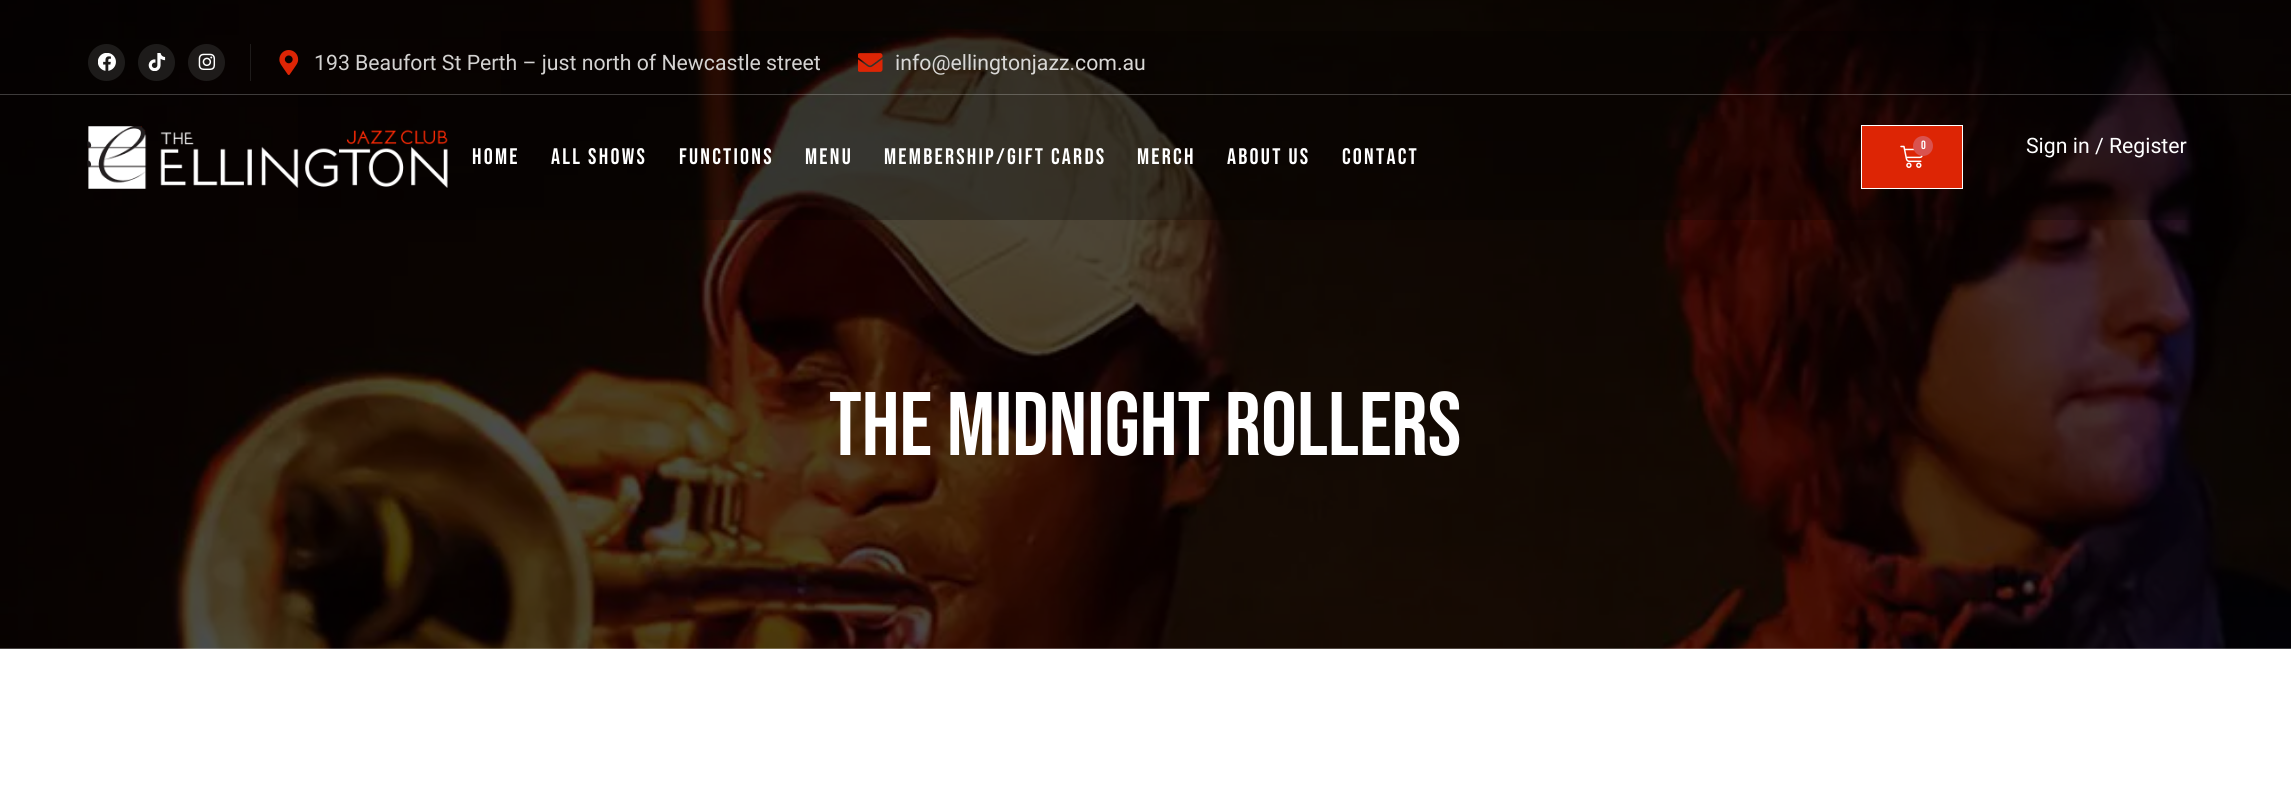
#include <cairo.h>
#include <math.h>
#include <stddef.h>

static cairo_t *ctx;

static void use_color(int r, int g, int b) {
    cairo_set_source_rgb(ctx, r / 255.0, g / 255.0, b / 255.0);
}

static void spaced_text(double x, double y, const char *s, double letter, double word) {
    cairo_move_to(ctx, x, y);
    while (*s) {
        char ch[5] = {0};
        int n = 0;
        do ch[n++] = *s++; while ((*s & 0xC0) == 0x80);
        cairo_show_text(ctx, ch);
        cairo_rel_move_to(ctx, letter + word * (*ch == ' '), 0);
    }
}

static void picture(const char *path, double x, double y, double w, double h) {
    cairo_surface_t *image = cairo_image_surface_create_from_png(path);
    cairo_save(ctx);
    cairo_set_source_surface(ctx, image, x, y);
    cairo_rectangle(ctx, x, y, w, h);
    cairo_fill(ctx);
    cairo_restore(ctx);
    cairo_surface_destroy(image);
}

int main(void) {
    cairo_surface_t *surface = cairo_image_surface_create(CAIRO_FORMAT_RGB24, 2291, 790);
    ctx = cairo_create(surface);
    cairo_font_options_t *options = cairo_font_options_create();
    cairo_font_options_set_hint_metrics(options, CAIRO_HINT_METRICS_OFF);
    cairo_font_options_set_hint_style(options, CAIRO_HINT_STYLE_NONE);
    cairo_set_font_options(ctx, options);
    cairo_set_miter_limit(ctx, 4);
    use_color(255, 255, 255);
    cairo_paint(ctx);
    picture("img8.png", 0, 0, 2291, 649);
    cairo_set_source_rgba(ctx, 0, 0, 0, 0.29);
    cairo_rectangle(ctx, 501, 31, 1674, 64);
    cairo_fill(ctx);
    cairo_set_source_rgba(ctx, 1, 1, 1, 0.23);
    cairo_rectangle(ctx, 0, 94, 2291, 1);
    cairo_fill(ctx);
    use_color(30, 27, 26);
    cairo_rectangle(ctx, 250, 44, 1, 37);
    cairo_fill(ctx);
    use_color(29, 27, 26);
    cairo_arc(ctx, 106.5, 62.5, 18.5, 0, 2 * M_PI);
    cairo_fill(ctx);
    picture("img1.png", 98, 53, 18, 18);
    cairo_arc(ctx, 156.5, 62.5, 18.5, 0, 2 * M_PI);
    cairo_fill(ctx);
    picture("img2.png", 148, 53, 18, 18);
    use_color(30, 27, 26);
    cairo_arc(ctx, 206.5, 62.5, 18.5, 0, 2 * M_PI);
    cairo_fill(ctx);
    picture("img3.png", 198, 53, 18, 17);
    picture("img4.png", 279, 50, 20, 25);
    cairo_select_font_face(ctx, "Roboto", CAIRO_FONT_SLANT_NORMAL, CAIRO_FONT_WEIGHT_NORMAL);
    cairo_set_font_size(ctx, 21.25);
    use_color(211, 210, 209);
    cairo_move_to(ctx, 314, 70);
    cairo_show_text(ctx, "193 Beaufort St Perth – just north of Newcastle street");
    picture("img5.png", 858, 53, 25, 19);
    use_color(217, 216, 214);
    cairo_move_to(ctx, 895, 70);
    cairo_show_text(ctx, "info@ellingtonjazz.com.au");
    cairo_set_source_rgba(ctx, 0, 0, 0, 0.29);
    cairo_rectangle(ctx, 298, 95, 1896, 125);
    cairo_fill(ctx);
    picture("img6.png", 87, 126, 361, 63);
    use_color(221, 37, 5);
    cairo_rectangle(ctx, 1861.5, 125.5, 101, 63);
    cairo_fill_preserve(ctx);
    use_color(255, 255, 255);
    cairo_set_line_width(ctx, 1);
    cairo_stroke(ctx);
    picture("img7.png", 1900, 145, 23, 23);
    use_color(217, 83, 79);
    cairo_arc(ctx, 1923, 146, 10, 0, 2 * M_PI);
    cairo_fill(ctx);
    cairo_select_font_face(ctx, "Bebas Neue", CAIRO_FONT_SLANT_NORMAL, CAIRO_FONT_WEIGHT_NORMAL);
    cairo_set_font_size(ctx, 12);
    use_color(255, 255, 255);
    cairo_move_to(ctx, 1921, 149);
    cairo_show_text(ctx, "0");
    cairo_select_font_face(ctx, "Roboto", CAIRO_FONT_SLANT_NORMAL, CAIRO_FONT_WEIGHT_NORMAL);
    cairo_set_font_size(ctx, 21.25);
    cairo_move_to(ctx, 2026, 153);
    cairo_show_text(ctx, "Sign in / Register");
    cairo_select_font_face(ctx, "Bebas Neue", CAIRO_FONT_SLANT_NORMAL, CAIRO_FONT_WEIGHT_NORMAL);
    cairo_set_font_size(ctx, 22.5);
    spaced_text(472, 164, "HOME", 2.25, 0);
    spaced_text(551, 164, "ALL SHOWS", 2.25, 0);
    spaced_text(679, 164, "FUNCTIONS", 2.25, 0);
    spaced_text(805, 164, "MENU", 2.25, 0);
    spaced_text(884, 164, "MEMBERSHIP/GIFT CARDS", 2.25, 0);
    spaced_text(1137, 164, "MERCH", 2.25, 0);
    spaced_text(1227, 164, "ABOUT US", 2.25, 0);
    spaced_text(1342, 164, "CONTACT", 2.25, 0);
    cairo_set_font_size(ctx, 90);
    cairo_move_to(ctx, 829, 455);
    cairo_show_text(ctx, "THE MIDNIGHT ROLLERS");
    cairo_surface_write_to_png(surface, "result.png");
    cairo_font_options_destroy(options);
    cairo_destroy(ctx);
    cairo_surface_destroy(surface);
    return 0;
}
